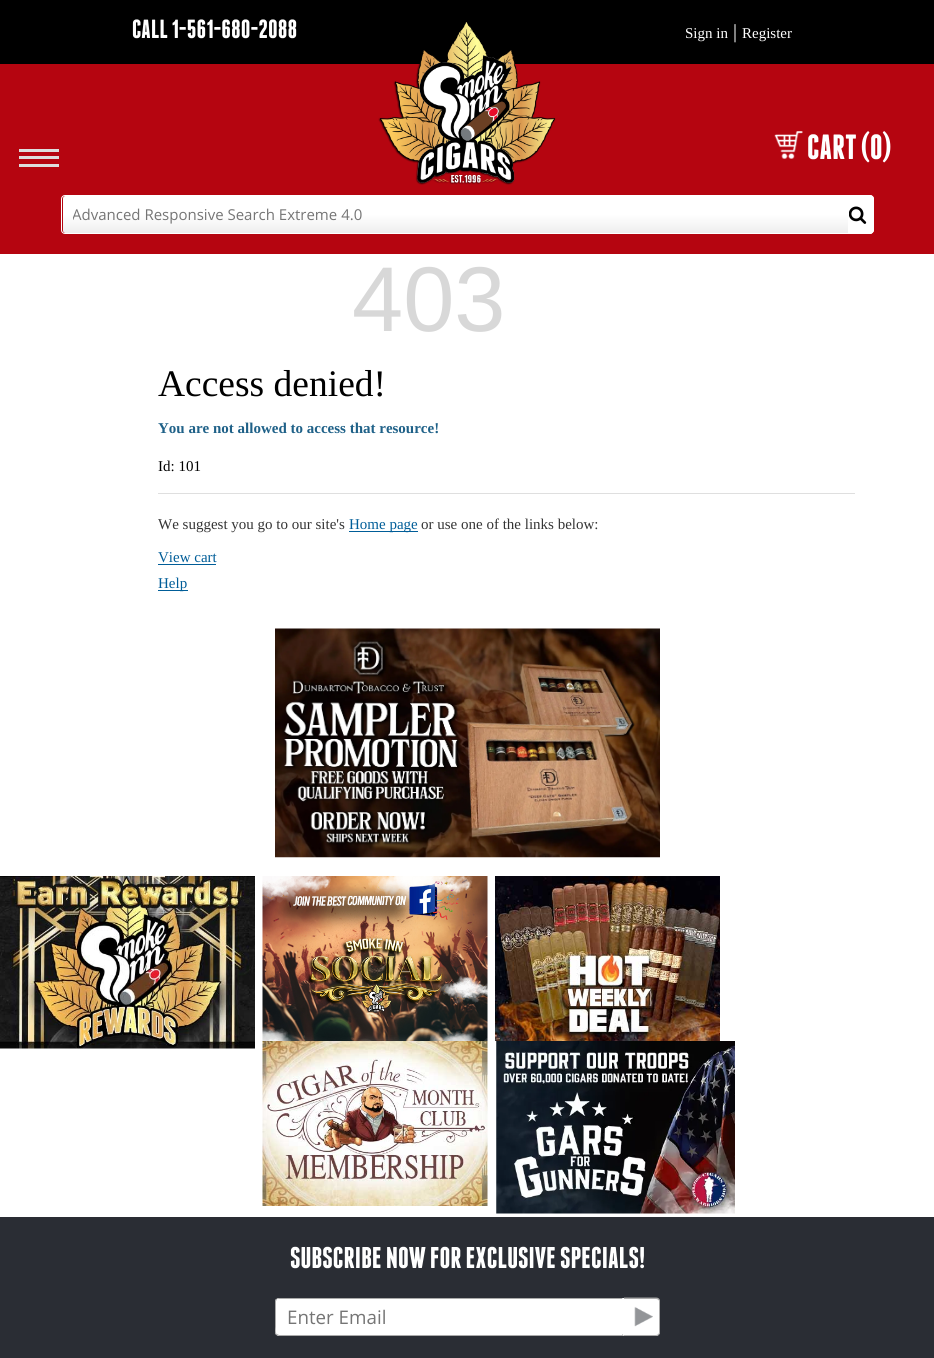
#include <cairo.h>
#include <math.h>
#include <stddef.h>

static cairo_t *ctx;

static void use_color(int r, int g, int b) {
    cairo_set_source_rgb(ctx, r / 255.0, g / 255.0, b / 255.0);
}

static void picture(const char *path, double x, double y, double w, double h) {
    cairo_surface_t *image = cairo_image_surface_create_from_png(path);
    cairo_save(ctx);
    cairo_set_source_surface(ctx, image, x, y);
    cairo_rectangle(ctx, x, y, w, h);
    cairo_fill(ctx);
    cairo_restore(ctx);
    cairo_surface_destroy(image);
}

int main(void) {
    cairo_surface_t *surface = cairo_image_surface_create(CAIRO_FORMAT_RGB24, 934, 1358);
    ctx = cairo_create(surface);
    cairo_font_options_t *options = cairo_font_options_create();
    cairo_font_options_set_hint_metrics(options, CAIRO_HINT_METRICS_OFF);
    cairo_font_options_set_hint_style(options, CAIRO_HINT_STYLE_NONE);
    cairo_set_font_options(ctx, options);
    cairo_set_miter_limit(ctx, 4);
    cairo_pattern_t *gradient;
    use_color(255, 255, 255);
    cairo_paint(ctx);
    use_color(0, 0, 0);
    cairo_rectangle(ctx, 0, 0, 934, 64);
    cairo_fill(ctx);
    cairo_select_font_face(ctx, "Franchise", CAIRO_FONT_SLANT_NORMAL, CAIRO_FONT_WEIGHT_BOLD);
    cairo_set_font_size(ctx, 26.25);
    use_color(255, 255, 255);
    cairo_move_to(ctx, 132, 38);
    cairo_show_text(ctx, "CALL 1-561-680-2088");
    cairo_select_font_face(ctx, "Liberation Serif", CAIRO_FONT_SLANT_NORMAL, CAIRO_FONT_WEIGHT_NORMAL);
    cairo_set_font_size(ctx, 15);
    cairo_move_to(ctx, 685, 38);
    cairo_show_text(ctx, "Sign in");
    cairo_set_font_size(ctx, 20);
    cairo_move_to(ctx, 733, 38);
    cairo_show_text(ctx, "|");
    cairo_set_font_size(ctx, 15);
    cairo_move_to(ctx, 742, 38);
    cairo_show_text(ctx, "Register");
    use_color(181, 5, 16);
    cairo_rectangle(ctx, 0, 64, 934, 190);
    cairo_fill(ctx);
    use_color(221, 221, 221);
    cairo_rectangle(ctx, 19, 149, 40, 3);
    cairo_fill(ctx);
    cairo_rectangle(ctx, 19, 156, 40, 3);
    cairo_fill(ctx);
    cairo_rectangle(ctx, 19, 164, 40, 3);
    cairo_fill(ctx);
    picture("img1.png", 378, 22, 178, 163);
    picture("img2.png", 774, 131, 29, 28);
    cairo_select_font_face(ctx, "Franchise", CAIRO_FONT_SLANT_NORMAL, CAIRO_FONT_WEIGHT_BOLD);
    cairo_set_font_size(ctx, 35);
    use_color(255, 255, 255);
    cairo_move_to(ctx, 807, 159);
    cairo_show_text(ctx, "CART (0)");
    gradient = cairo_pattern_create_linear(455, 233, 455, 196);
    cairo_pattern_add_color_stop_rgba(gradient, 0, 0.933, 0.933, 0.933, 1);
    cairo_pattern_add_color_stop_rgba(gradient, 0.5, 1, 1, 1, 1);
    cairo_set_source(ctx, gradient);
    cairo_pattern_destroy(gradient);
    cairo_new_path(ctx);
    cairo_move_to(ctx, 65.5, 196);
    cairo_line_to(ctx, 848, 196);
    cairo_line_to(ctx, 848, 233);
    cairo_line_to(ctx, 65.5, 233);
    cairo_curve_to(ctx, 64, 233, 63, 232, 63, 230.5);
    cairo_line_to(ctx, 63, 198.5);
    cairo_curve_to(ctx, 63, 197, 64, 196, 65.5, 196);
    cairo_close_path(ctx);
    cairo_fill(ctx);
    cairo_new_path(ctx);
    cairo_move_to(ctx, 65, 195.5);
    cairo_line_to(ctx, 848.5, 195.5);
    cairo_line_to(ctx, 848.5, 233.5);
    cairo_line_to(ctx, 65, 233.5);
    cairo_curve_to(ctx, 63, 233.5, 61.5, 232, 61.5, 230);
    cairo_line_to(ctx, 61.5, 199);
    cairo_curve_to(ctx, 61.5, 197, 63, 195.5, 65, 195.5);
    cairo_close_path(ctx);
    use_color(255, 255, 255);
    cairo_set_line_width(ctx, 1);
    cairo_stroke(ctx);
    cairo_save(ctx);
    cairo_rectangle(ctx, 73, 204, 775, 21);
    cairo_clip(ctx);
    cairo_select_font_face(ctx, "Open Sans", CAIRO_FONT_SLANT_NORMAL, CAIRO_FONT_WEIGHT_NORMAL);
    cairo_set_font_size(ctx, 15);
    use_color(117, 117, 117);
    cairo_move_to(ctx, 72, 220);
    cairo_show_text(ctx, "Advanced Responsive Search Extreme 4.0");
    cairo_restore(ctx);
    cairo_new_path(ctx);
    cairo_move_to(ctx, 849, 195);
    cairo_line_to(ctx, 870, 195);
    cairo_curve_to(ctx, 872, 195, 874, 197, 874, 199);
    cairo_line_to(ctx, 874, 230);
    cairo_curve_to(ctx, 874, 232, 872, 234, 870, 234);
    cairo_line_to(ctx, 849, 234);
    cairo_close_path(ctx);
    cairo_fill(ctx);
    cairo_set_fill_rule(ctx, CAIRO_FILL_RULE_EVEN_ODD);
    cairo_new_path(ctx);
    cairo_move_to(ctx, 849, 195);
    cairo_line_to(ctx, 870, 195);
    cairo_curve_to(ctx, 872, 195, 874, 196.5, 874, 199);
    cairo_line_to(ctx, 874, 230);
    cairo_curve_to(ctx, 874, 232, 872, 234, 870, 234);
    cairo_line_to(ctx, 849, 234);
    cairo_close_path(ctx);
    cairo_move_to(ctx, 849, 196);
    cairo_line_to(ctx, 870, 196);
    cairo_curve_to(ctx, 871.5, 196, 872.5, 197.5, 872.5, 199);
    cairo_line_to(ctx, 872.5, 230);
    cairo_curve_to(ctx, 872.5, 231.5, 871.5, 232.5, 870, 232.5);
    cairo_line_to(ctx, 849, 232.5);
    cairo_close_path(ctx);
    cairo_fill(ctx);
    picture("img3.png", 849, 206, 18, 18);
    cairo_select_font_face(ctx, "Liberation Sans", CAIRO_FONT_SLANT_NORMAL, CAIRO_FONT_WEIGHT_NORMAL);
    cairo_set_font_size(ctx, 92);
    use_color(216, 216, 216);
    cairo_move_to(ctx, 352, 331);
    cairo_show_text(ctx, "403");
    cairo_select_font_face(ctx, "Liberation Serif", CAIRO_FONT_SLANT_NORMAL, CAIRO_FONT_WEIGHT_NORMAL);
    cairo_set_font_size(ctx, 37.5);
    use_color(0, 0, 0);
    cairo_move_to(ctx, 158, 396);
    cairo_show_text(ctx, "Access denied!");
    cairo_select_font_face(ctx, "Liberation Serif", CAIRO_FONT_SLANT_NORMAL, CAIRO_FONT_WEIGHT_BOLD);
    cairo_set_font_size(ctx, 15);
    use_color(31, 97, 136);
    cairo_move_to(ctx, 158, 433);
    cairo_show_text(ctx, "You are not allowed to access that resource!");
    cairo_select_font_face(ctx, "Liberation Serif", CAIRO_FONT_SLANT_NORMAL, CAIRO_FONT_WEIGHT_NORMAL);
    use_color(0, 0, 0);
    cairo_move_to(ctx, 158, 471);
    cairo_show_text(ctx, "Id: 101");
    use_color(223, 223, 223);
    cairo_rectangle(ctx, 158, 493, 697, 1);
    cairo_fill(ctx);
    use_color(52, 52, 52);
    cairo_move_to(ctx, 158, 529);
    cairo_show_text(ctx, "We suggest you go to our site's");
    use_color(0, 93, 152);
    cairo_rectangle(ctx, 349, 531, 69, 1);
    cairo_fill(ctx);
    cairo_move_to(ctx, 349, 529);
    cairo_show_text(ctx, "Home page");
    use_color(52, 52, 52);
    cairo_move_to(ctx, 421, 529);
    cairo_show_text(ctx, "or use one of the links below:");
    use_color(0, 93, 152);
    cairo_move_to(ctx, 158, 562);
    cairo_show_text(ctx, "View cart");
    cairo_rectangle(ctx, 158, 564, 58, 1);
    cairo_fill(ctx);
    cairo_rectangle(ctx, 158, 590, 30, 1);
    cairo_fill(ctx);
    cairo_move_to(ctx, 158, 588);
    cairo_show_text(ctx, "Help");
    picture("img4.png", 275, 628, 385, 230);
    picture("img5.png", 0, 876, 255, 173);
    picture("img6.png", 262, 876, 226, 165);
    picture("img7.png", 495, 876, 225, 165);
    picture("img8.png", 262, 1041, 226, 165);
    picture("img9.png", 496, 1041, 239, 173);
    use_color(42, 45, 52);
    cairo_rectangle(ctx, 0, 1217, 934, 141);
    cairo_fill(ctx);
    cairo_select_font_face(ctx, "Franchise", CAIRO_FONT_SLANT_NORMAL, CAIRO_FONT_WEIGHT_BOLD);
    cairo_set_font_size(ctx, 30);
    use_color(255, 255, 255);
    cairo_move_to(ctx, 290, 1268);
    cairo_show_text(ctx, "SUBSCRIBE NOW FOR EXCLUSIVE SPECIALS!");
    cairo_new_path(ctx);
    cairo_move_to(ctx, 279, 1298);
    cairo_line_to(ctx, 624, 1298);
    cairo_line_to(ctx, 624, 1336);
    cairo_line_to(ctx, 279, 1336);
    cairo_curve_to(ctx, 277, 1336, 275, 1334, 275, 1332);
    cairo_line_to(ctx, 275, 1302);
    cairo_curve_to(ctx, 275, 1300, 277, 1298, 279, 1298);
    cairo_close_path(ctx);
    cairo_fill(ctx);
    use_color(170, 170, 170);
    cairo_set_fill_rule(ctx, CAIRO_FILL_RULE_WINDING);
    cairo_new_path(ctx);
    cairo_move_to(ctx, 279, 1298);
    cairo_line_to(ctx, 276, 1299);
    cairo_line_to(ctx, 277, 1299);
    cairo_line_to(ctx, 279, 1299);
    cairo_line_to(ctx, 622, 1299);
    cairo_line_to(ctx, 623, 1298);
    cairo_close_path(ctx);
    cairo_fill(ctx);
    use_color(255, 255, 255);
    cairo_new_path(ctx);
    cairo_move_to(ctx, 624, 1336);
    cairo_line_to(ctx, 622, 1334.5);
    cairo_line_to(ctx, 622, 1299);
    cairo_line_to(ctx, 623, 1298);
    cairo_line_to(ctx, 624, 1298);
    cairo_close_path(ctx);
    cairo_fill(ctx);
    use_color(170, 170, 170);
    cairo_new_path(ctx);
    cairo_move_to(ctx, 624, 1336);
    cairo_line_to(ctx, 279, 1336);
    cairo_line_to(ctx, 276, 1335);
    cairo_line_to(ctx, 277, 1334);
    cairo_line_to(ctx, 279, 1335);
    cairo_line_to(ctx, 622, 1335);
    cairo_line_to(ctx, 622, 1334);
    cairo_close_path(ctx);
    cairo_fill(ctx);
    cairo_new_path(ctx);
    cairo_move_to(ctx, 275, 1301);
    cairo_line_to(ctx, 275, 1332);
    cairo_curve_to(ctx, 275, 1333.5, 275.5, 1334.5, 276, 1335);
    cairo_line_to(ctx, 277, 1334.5);
    cairo_curve_to(ctx, 275, 1333, 276, 1327.5, 276, 1327);
    cairo_line_to(ctx, 276, 1301);
    cairo_line_to(ctx, 277, 1299.5);
    cairo_line_to(ctx, 276, 1299);
    cairo_curve_to(ctx, 275.5, 1299, 275, 1300, 275, 1301);
    cairo_close_path(ctx);
    cairo_fill(ctx);
    cairo_select_font_face(ctx, "Open Sans", CAIRO_FONT_SLANT_NORMAL, CAIRO_FONT_WEIGHT_NORMAL);
    cairo_set_font_size(ctx, 18.75);
    use_color(117, 117, 117);
    cairo_move_to(ctx, 287, 1324);
    cairo_show_text(ctx, "Enter Email");
    use_color(255, 255, 255);
    cairo_new_path(ctx);
    cairo_move_to(ctx, 624, 1298);
    cairo_line_to(ctx, 656, 1298);
    cairo_curve_to(ctx, 658, 1298, 660, 1300, 660, 1302);
    cairo_line_to(ctx, 660, 1332);
    cairo_curve_to(ctx, 660, 1334, 658, 1336, 656, 1336);
    cairo_line_to(ctx, 624, 1336);
    cairo_close_path(ctx);
    cairo_fill(ctx);
    picture("img10.png", 624, 1305, 29, 24);
    use_color(170, 170, 170);
    cairo_set_fill_rule(ctx, CAIRO_FILL_RULE_EVEN_ODD);
    cairo_new_path(ctx);
    cairo_move_to(ctx, 624, 1297.5);
    cairo_line_to(ctx, 656, 1297.5);
    cairo_curve_to(ctx, 658.5, 1297.5, 660, 1299, 660, 1301);
    cairo_line_to(ctx, 660, 1332.5);
    cairo_curve_to(ctx, 660, 1334.5, 658.5, 1336, 656, 1336);
    cairo_line_to(ctx, 624, 1336);
    cairo_close_path(ctx);
    cairo_move_to(ctx, 624, 1299);
    cairo_line_to(ctx, 656, 1299);
    cairo_curve_to(ctx, 657.5, 1299, 659, 1300, 659, 1301);
    cairo_line_to(ctx, 659, 1332.5);
    cairo_curve_to(ctx, 659, 1334, 657.5, 1335, 656, 1335);
    cairo_line_to(ctx, 624, 1335);
    cairo_close_path(ctx);
    cairo_fill(ctx);
    cairo_surface_write_to_png(surface, "result.png");
    cairo_font_options_destroy(options);
    cairo_destroy(ctx);
    cairo_surface_destroy(surface);
    return 0;
}
